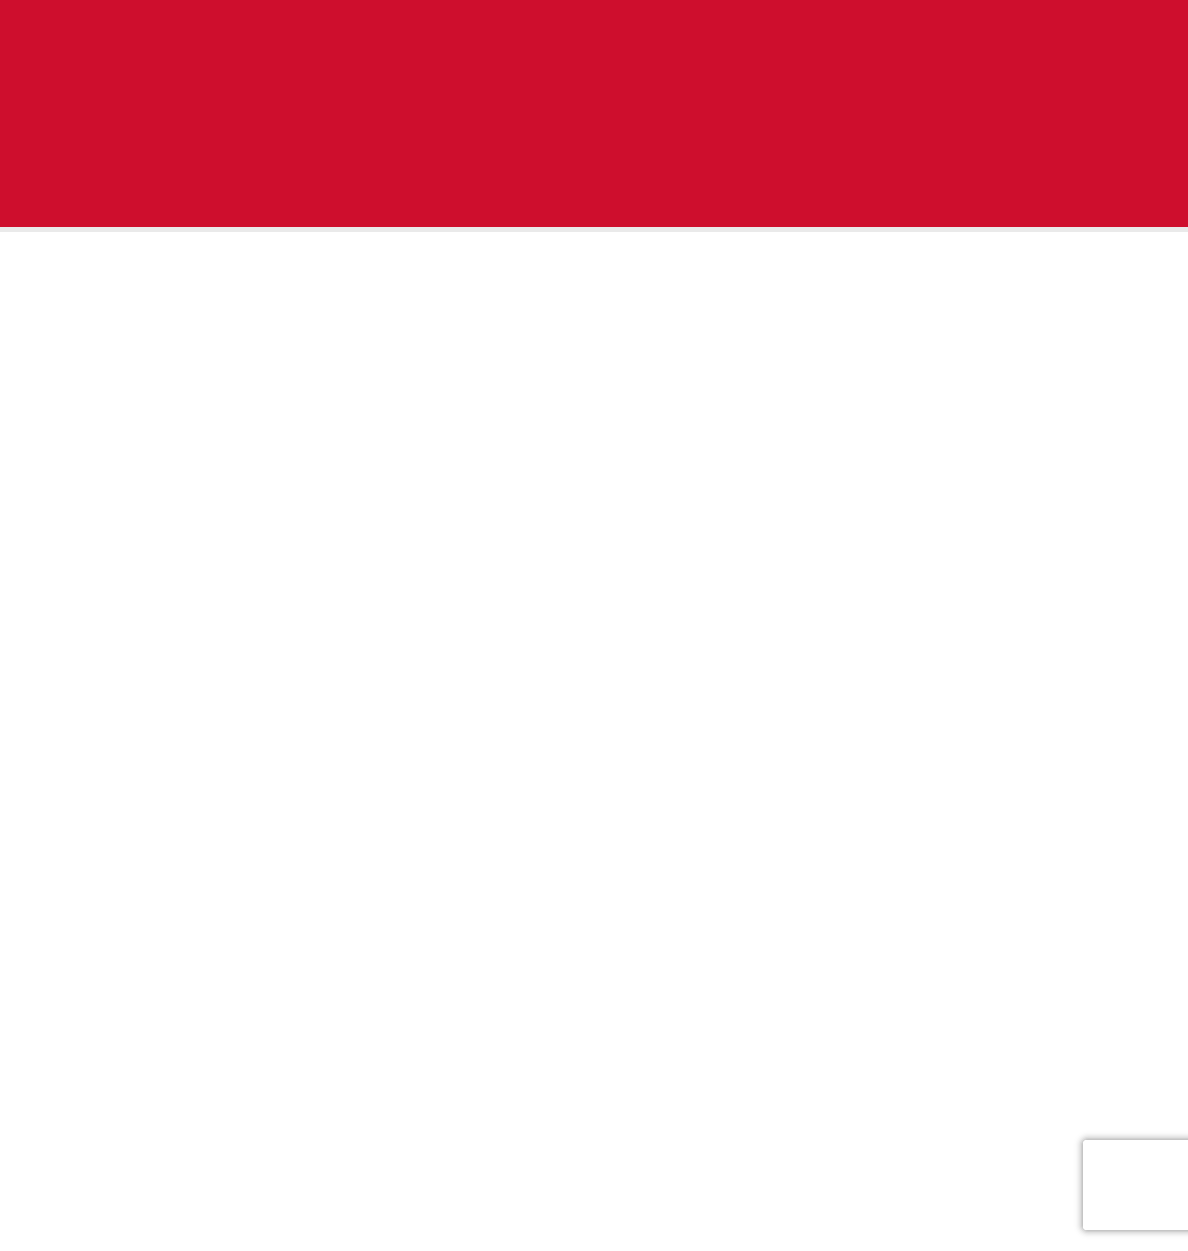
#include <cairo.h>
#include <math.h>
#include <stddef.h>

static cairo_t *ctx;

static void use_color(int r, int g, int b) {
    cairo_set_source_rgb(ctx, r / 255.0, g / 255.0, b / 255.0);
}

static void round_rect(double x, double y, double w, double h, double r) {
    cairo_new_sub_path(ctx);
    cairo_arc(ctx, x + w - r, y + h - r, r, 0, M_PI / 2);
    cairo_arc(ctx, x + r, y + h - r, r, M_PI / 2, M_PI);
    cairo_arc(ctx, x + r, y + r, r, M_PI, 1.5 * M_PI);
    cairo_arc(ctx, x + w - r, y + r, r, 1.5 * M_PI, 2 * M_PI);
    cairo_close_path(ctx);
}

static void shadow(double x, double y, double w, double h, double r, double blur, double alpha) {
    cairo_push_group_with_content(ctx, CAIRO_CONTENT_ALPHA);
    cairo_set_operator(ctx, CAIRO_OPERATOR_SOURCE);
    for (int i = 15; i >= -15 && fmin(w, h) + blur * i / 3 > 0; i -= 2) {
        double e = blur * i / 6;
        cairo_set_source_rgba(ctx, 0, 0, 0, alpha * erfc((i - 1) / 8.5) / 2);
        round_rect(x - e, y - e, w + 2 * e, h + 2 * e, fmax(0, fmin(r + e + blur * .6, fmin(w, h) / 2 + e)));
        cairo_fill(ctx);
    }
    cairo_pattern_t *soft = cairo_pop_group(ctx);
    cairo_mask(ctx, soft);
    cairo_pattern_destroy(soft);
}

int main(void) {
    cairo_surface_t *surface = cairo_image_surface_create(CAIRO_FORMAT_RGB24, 1188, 1251);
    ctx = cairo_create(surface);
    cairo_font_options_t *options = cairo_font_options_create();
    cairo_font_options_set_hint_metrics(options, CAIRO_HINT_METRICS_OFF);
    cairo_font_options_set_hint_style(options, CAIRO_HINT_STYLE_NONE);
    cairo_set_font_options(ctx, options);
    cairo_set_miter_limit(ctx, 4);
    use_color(255, 255, 255);
    cairo_paint(ctx);
    use_color(206, 14, 45);
    cairo_rectangle(ctx, 0, 0, 1188, 227);
    cairo_fill(ctx);
    use_color(234, 234, 234);
    cairo_rectangle(ctx, 0, 227, 1188, 5);
    cairo_fill(ctx);
    cairo_save(ctx);
    cairo_set_fill_rule(ctx, CAIRO_FILL_RULE_EVEN_ODD);
    cairo_new_path(ctx);
    cairo_move_to(ctx, 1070, 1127);
    cairo_line_to(ctx, 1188, 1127);
    cairo_line_to(ctx, 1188, 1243);
    cairo_line_to(ctx, 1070, 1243);
    cairo_close_path(ctx);
    cairo_move_to(ctx, 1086, 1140);
    cairo_line_to(ctx, 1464, 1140);
    cairo_curve_to(ctx, 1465.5, 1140, 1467, 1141.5, 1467, 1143);
    cairo_line_to(ctx, 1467, 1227);
    cairo_curve_to(ctx, 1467, 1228.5, 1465.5, 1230, 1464, 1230);
    cairo_line_to(ctx, 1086, 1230);
    cairo_curve_to(ctx, 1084.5, 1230, 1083, 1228.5, 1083, 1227);
    cairo_line_to(ctx, 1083, 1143);
    cairo_curve_to(ctx, 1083, 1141.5, 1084.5, 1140, 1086, 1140);
    cairo_close_path(ctx);
    cairo_clip(ctx);
    use_color(128, 128, 128);
    shadow(1083, 1140, 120, 90, 3, 4, 1);
    cairo_restore(ctx);
    cairo_surface_write_to_png(surface, "result.png");
    cairo_font_options_destroy(options);
    cairo_destroy(ctx);
    cairo_surface_destroy(surface);
    return 0;
}
